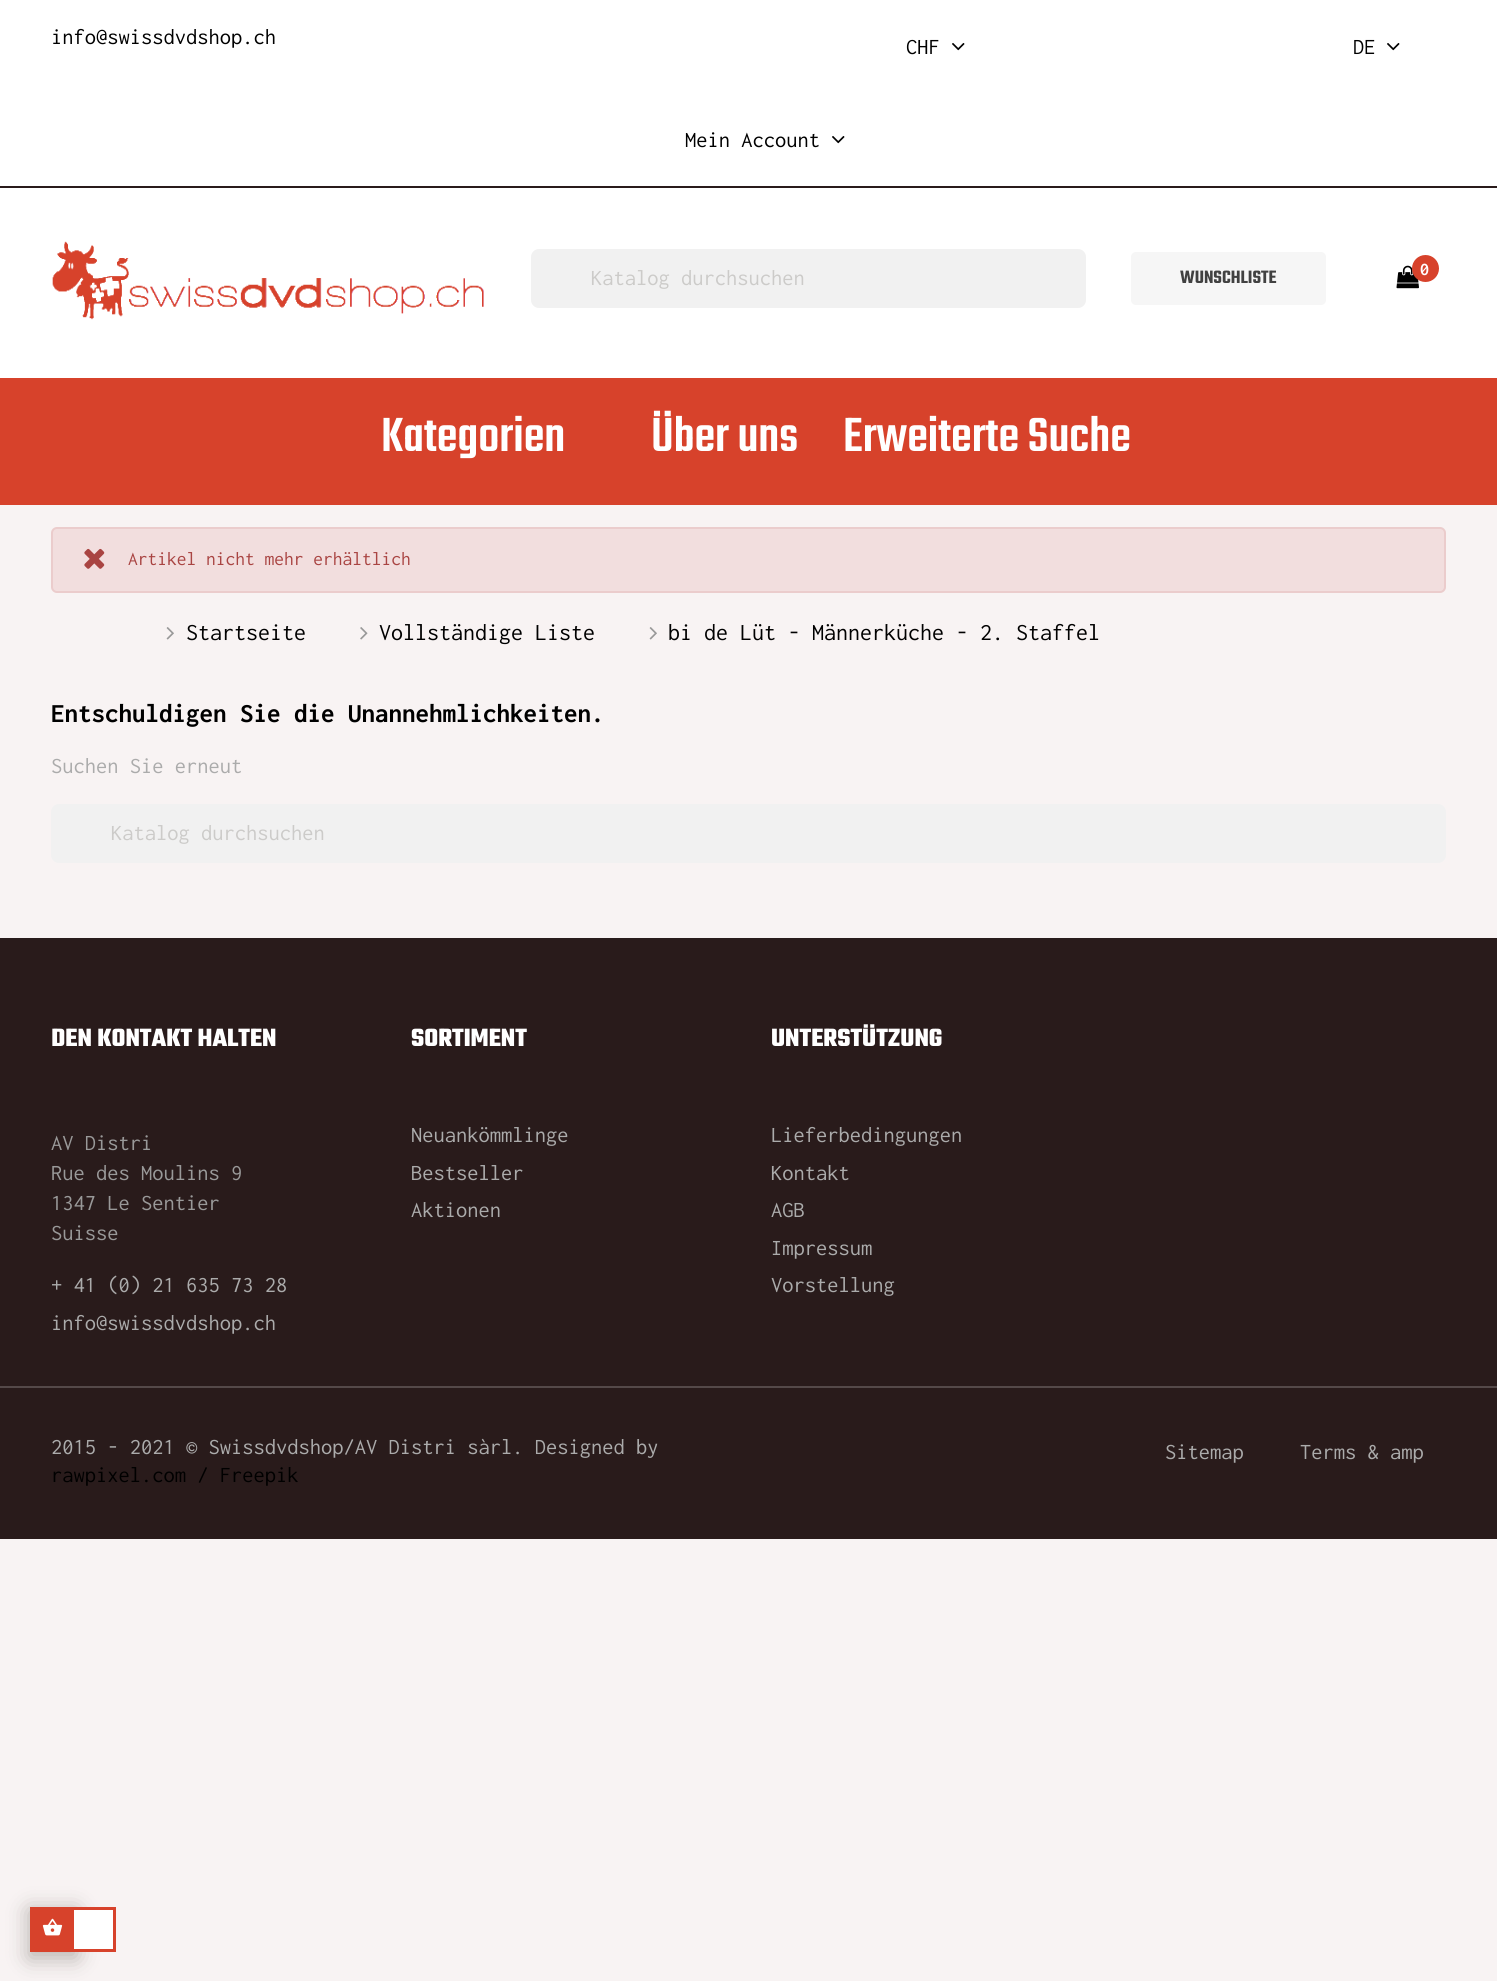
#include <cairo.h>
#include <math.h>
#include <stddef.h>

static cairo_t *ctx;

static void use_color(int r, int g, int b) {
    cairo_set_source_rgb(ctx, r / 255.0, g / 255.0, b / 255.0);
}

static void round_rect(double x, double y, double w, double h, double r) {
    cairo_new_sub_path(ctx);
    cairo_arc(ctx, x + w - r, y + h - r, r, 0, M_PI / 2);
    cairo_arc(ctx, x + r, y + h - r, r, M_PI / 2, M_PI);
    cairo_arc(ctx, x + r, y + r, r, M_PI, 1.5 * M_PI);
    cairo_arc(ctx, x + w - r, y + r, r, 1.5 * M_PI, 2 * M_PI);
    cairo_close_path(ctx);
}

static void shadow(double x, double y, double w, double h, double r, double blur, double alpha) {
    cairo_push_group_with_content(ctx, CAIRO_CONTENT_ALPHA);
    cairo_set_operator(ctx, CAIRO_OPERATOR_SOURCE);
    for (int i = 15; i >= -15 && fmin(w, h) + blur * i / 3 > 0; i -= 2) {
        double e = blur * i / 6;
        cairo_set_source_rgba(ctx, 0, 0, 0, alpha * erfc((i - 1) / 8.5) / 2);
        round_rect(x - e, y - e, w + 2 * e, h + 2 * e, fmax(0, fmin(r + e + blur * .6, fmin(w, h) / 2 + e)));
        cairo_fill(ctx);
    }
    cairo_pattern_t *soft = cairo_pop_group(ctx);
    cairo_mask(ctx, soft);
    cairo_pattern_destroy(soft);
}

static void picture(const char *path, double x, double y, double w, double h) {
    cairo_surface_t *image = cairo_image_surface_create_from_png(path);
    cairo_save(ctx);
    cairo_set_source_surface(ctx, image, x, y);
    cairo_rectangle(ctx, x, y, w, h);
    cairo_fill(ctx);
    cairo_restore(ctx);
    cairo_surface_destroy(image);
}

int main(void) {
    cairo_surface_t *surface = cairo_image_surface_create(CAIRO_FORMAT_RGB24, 1497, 1981);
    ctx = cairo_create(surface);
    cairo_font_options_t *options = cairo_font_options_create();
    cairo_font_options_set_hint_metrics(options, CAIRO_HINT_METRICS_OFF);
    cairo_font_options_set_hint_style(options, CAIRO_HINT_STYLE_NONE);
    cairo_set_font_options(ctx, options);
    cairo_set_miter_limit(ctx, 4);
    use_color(248, 243, 243);
    cairo_paint(ctx);
    use_color(255, 255, 255);
    cairo_rectangle(ctx, 0, 0, 1497, 378);
    cairo_fill(ctx);
    cairo_select_font_face(ctx, "Inconsolata", CAIRO_FONT_SLANT_NORMAL, CAIRO_FONT_WEIGHT_NORMAL);
    cairo_set_font_size(ctx, 22.5);
    use_color(0, 0, 0);
    cairo_move_to(ctx, 51, 44);
    cairo_show_text(ctx, "info@swissdvdshop.ch");
    cairo_move_to(ctx, 906, 54);
    cairo_show_text(ctx, "CHF");
    picture("img1.png", 952, 43, 13, 8);
    cairo_move_to(ctx, 1353, 54);
    cairo_show_text(ctx, "DE");
    picture("img1.png", 1387, 43, 13, 8);
    cairo_move_to(ctx, 685, 147);
    cairo_show_text(ctx, "Mein Account");
    picture("img1.png", 832, 136, 13, 8);
    use_color(41, 27, 27);
    cairo_rectangle(ctx, 0, 186, 1497, 2);
    cairo_fill(ctx);
    picture("img2.png", 52, 241, 432, 79);
    use_color(241, 241, 241);
    round_rect(531, 249, 555, 59, 8);
    cairo_fill(ctx);
    use_color(204, 203, 201);
    cairo_move_to(ctx, 591, 285);
    cairo_show_text(ctx, "Katalog durchsuchen");
    use_color(246, 246, 246);
    round_rect(1131, 252, 195, 53, 5);
    cairo_fill(ctx);
    cairo_select_font_face(ctx, "Teko SemiBold", CAIRO_FONT_SLANT_NORMAL, CAIRO_FONT_WEIGHT_NORMAL);
    cairo_set_font_size(ctx, 19.5);
    use_color(65, 65, 65);
    cairo_move_to(ctx, 1180, 283);
    cairo_show_text(ctx, "WUNSCHLISTE");
    picture("img3.png", 1396, 265, 23, 24);
    use_color(215, 66, 43);
    cairo_arc(ctx, 1425.5, 268.5, 13.5, 0, 2 * M_PI);
    cairo_fill(ctx);
    cairo_select_font_face(ctx, "Inconsolata", CAIRO_FONT_SLANT_NORMAL, CAIRO_FONT_WEIGHT_BOLD);
    cairo_set_font_size(ctx, 18);
    use_color(255, 255, 255);
    cairo_move_to(ctx, 1420, 275);
    cairo_show_text(ctx, "0");
    use_color(215, 66, 43);
    cairo_rectangle(ctx, 0, 378, 1497, 127);
    cairo_fill(ctx);
    cairo_select_font_face(ctx, "Teko Medium", CAIRO_FONT_SLANT_NORMAL, CAIRO_FONT_WEIGHT_NORMAL);
    cairo_set_font_size(ctx, 52.5);
    use_color(255, 255, 255);
    cairo_move_to(ctx, 381, 451);
    cairo_show_text(ctx, "Kategorien");
    cairo_move_to(ctx, 651, 451);
    cairo_show_text(ctx, "Über uns");
    cairo_move_to(ctx, 843, 451);
    cairo_show_text(ctx, "Erweiterte Suche");
    use_color(242, 222, 222);
    round_rect(52, 528, 1393, 64, 5);
    cairo_fill_preserve(ctx);
    use_color(235, 204, 204);
    cairo_stroke(ctx);
    picture("img4.png", 84, 548, 21, 21);
    cairo_select_font_face(ctx, "Inconsolata", CAIRO_FONT_SLANT_NORMAL, CAIRO_FONT_WEIGHT_NORMAL);
    cairo_set_font_size(ctx, 19.5);
    use_color(169, 68, 66);
    cairo_move_to(ctx, 128, 565);
    cairo_show_text(ctx, "Artikel nicht mehr erhältlich");
    picture("img5.png", 166, 627, 8, 13);
    cairo_set_font_size(ctx, 24);
    use_color(0, 0, 0);
    cairo_move_to(ctx, 186, 640);
    cairo_show_text(ctx, "Startseite");
    picture("img6.png", 360, 627, 8, 13);
    cairo_move_to(ctx, 379, 640);
    cairo_show_text(ctx, "Vollständige Liste");
    picture("img5.png", 649, 627, 8, 13);
    cairo_move_to(ctx, 668, 640);
    cairo_show_text(ctx, "bi de Lüt - Männerküche - 2. Staffel");
    cairo_select_font_face(ctx, "Inconsolata", CAIRO_FONT_SLANT_NORMAL, CAIRO_FONT_WEIGHT_BOLD);
    cairo_set_font_size(ctx, 27);
    cairo_move_to(ctx, 51, 722);
    cairo_show_text(ctx, "Entschuldigen Sie die Unannehmlichkeiten.");
    cairo_select_font_face(ctx, "Inconsolata", CAIRO_FONT_SLANT_NORMAL, CAIRO_FONT_WEIGHT_NORMAL);
    cairo_set_font_size(ctx, 22.5);
    use_color(171, 171, 171);
    cairo_move_to(ctx, 51, 773);
    cairo_show_text(ctx, "Suchen Sie erneut");
    use_color(241, 241, 241);
    round_rect(51, 804, 1395, 59, 8);
    cairo_fill(ctx);
    use_color(204, 203, 201);
    cairo_move_to(ctx, 111, 840);
    cairo_show_text(ctx, "Katalog durchsuchen");
    use_color(41, 27, 27);
    cairo_rectangle(ctx, 0, 938, 1497, 448);
    cairo_fill(ctx);
    cairo_select_font_face(ctx, "Teko", CAIRO_FONT_SLANT_NORMAL, CAIRO_FONT_WEIGHT_BOLD);
    cairo_set_font_size(ctx, 27);
    use_color(255, 255, 255);
    cairo_move_to(ctx, 51, 1046);
    cairo_show_text(ctx, "DEN KONTAKT HALTEN");
    cairo_select_font_face(ctx, "Inconsolata", CAIRO_FONT_SLANT_NORMAL, CAIRO_FONT_WEIGHT_NORMAL);
    cairo_set_font_size(ctx, 22.5);
    use_color(153, 153, 153);
    cairo_move_to(ctx, 51, 1150);
    cairo_show_text(ctx, "AV Distri");
    cairo_move_to(ctx, 51, 1180);
    cairo_show_text(ctx, "Rue des Moulins 9");
    cairo_move_to(ctx, 51, 1210);
    cairo_show_text(ctx, "1347 Le Sentier");
    cairo_move_to(ctx, 51, 1240);
    cairo_show_text(ctx, "Suisse");
    use_color(171, 171, 171);
    cairo_move_to(ctx, 51, 1292);
    cairo_show_text(ctx, "+ 41 (0) 21 635 73 28");
    cairo_move_to(ctx, 51, 1330);
    cairo_show_text(ctx, "info@swissdvdshop.ch");
    cairo_select_font_face(ctx, "Teko", CAIRO_FONT_SLANT_NORMAL, CAIRO_FONT_WEIGHT_BOLD);
    cairo_set_font_size(ctx, 27);
    use_color(255, 255, 255);
    cairo_move_to(ctx, 411, 1046);
    cairo_show_text(ctx, "SORTIMENT");
    cairo_select_font_face(ctx, "Inconsolata", CAIRO_FONT_SLANT_NORMAL, CAIRO_FONT_WEIGHT_NORMAL);
    cairo_set_font_size(ctx, 22.5);
    use_color(171, 171, 171);
    cairo_move_to(ctx, 411, 1142);
    cairo_show_text(ctx, "Neuankömmlinge");
    cairo_move_to(ctx, 411, 1180);
    cairo_show_text(ctx, "Bestseller");
    cairo_move_to(ctx, 411, 1217);
    cairo_show_text(ctx, "Aktionen");
    cairo_select_font_face(ctx, "Teko", CAIRO_FONT_SLANT_NORMAL, CAIRO_FONT_WEIGHT_BOLD);
    cairo_set_font_size(ctx, 27);
    use_color(255, 255, 255);
    cairo_move_to(ctx, 771, 1046);
    cairo_show_text(ctx, "UNTERSTÜTZUNG");
    cairo_select_font_face(ctx, "Inconsolata", CAIRO_FONT_SLANT_NORMAL, CAIRO_FONT_WEIGHT_NORMAL);
    cairo_set_font_size(ctx, 22.5);
    use_color(171, 171, 171);
    cairo_move_to(ctx, 771, 1142);
    cairo_show_text(ctx, "Lieferbedingungen");
    cairo_move_to(ctx, 771, 1180);
    cairo_show_text(ctx, "Kontakt");
    cairo_move_to(ctx, 771, 1217);
    cairo_show_text(ctx, "AGB");
    cairo_move_to(ctx, 771, 1255);
    cairo_show_text(ctx, "Impressum");
    cairo_move_to(ctx, 771, 1292);
    cairo_show_text(ctx, "Vorstellung");
    use_color(41, 27, 27);
    cairo_rectangle(ctx, 0, 1388, 1497, 151);
    cairo_fill(ctx);
    use_color(84, 73, 73);
    cairo_rectangle(ctx, 0, 1386, 1497, 2);
    cairo_fill(ctx);
    use_color(171, 171, 171);
    cairo_move_to(ctx, 51, 1454);
    cairo_show_text(ctx, "2015 - 2021 © Swissdvdshop/AV Distri sàrl. Designed by");
    use_color(0, 0, 0);
    cairo_move_to(ctx, 51, 1482);
    cairo_show_text(ctx, "rawpixel.com / Freepik");
    use_color(171, 171, 171);
    cairo_move_to(ctx, 1165, 1459);
    cairo_show_text(ctx, "Sitemap");
    cairo_move_to(ctx, 1300, 1459);
    cairo_show_text(ctx, "Terms & amp");
    use_color(142, 137, 130);
    shadow(29, 1910, 48, 48, 0, 11, 0.62);
    use_color(215, 66, 43);
    cairo_rectangle(ctx, 30, 1907, 41, 45);
    cairo_fill(ctx);
    picture("img7.png", 42, 1918, 21, 18);
    use_color(255, 255, 255);
    cairo_rectangle(ctx, 72.5, 1908.5, 42, 42);
    cairo_fill_preserve(ctx);
    use_color(215, 66, 43);
    cairo_set_line_width(ctx, 3);
    cairo_stroke(ctx);
    cairo_surface_write_to_png(surface, "result.png");
    cairo_font_options_destroy(options);
    cairo_destroy(ctx);
    cairo_surface_destroy(surface);
    return 0;
}
